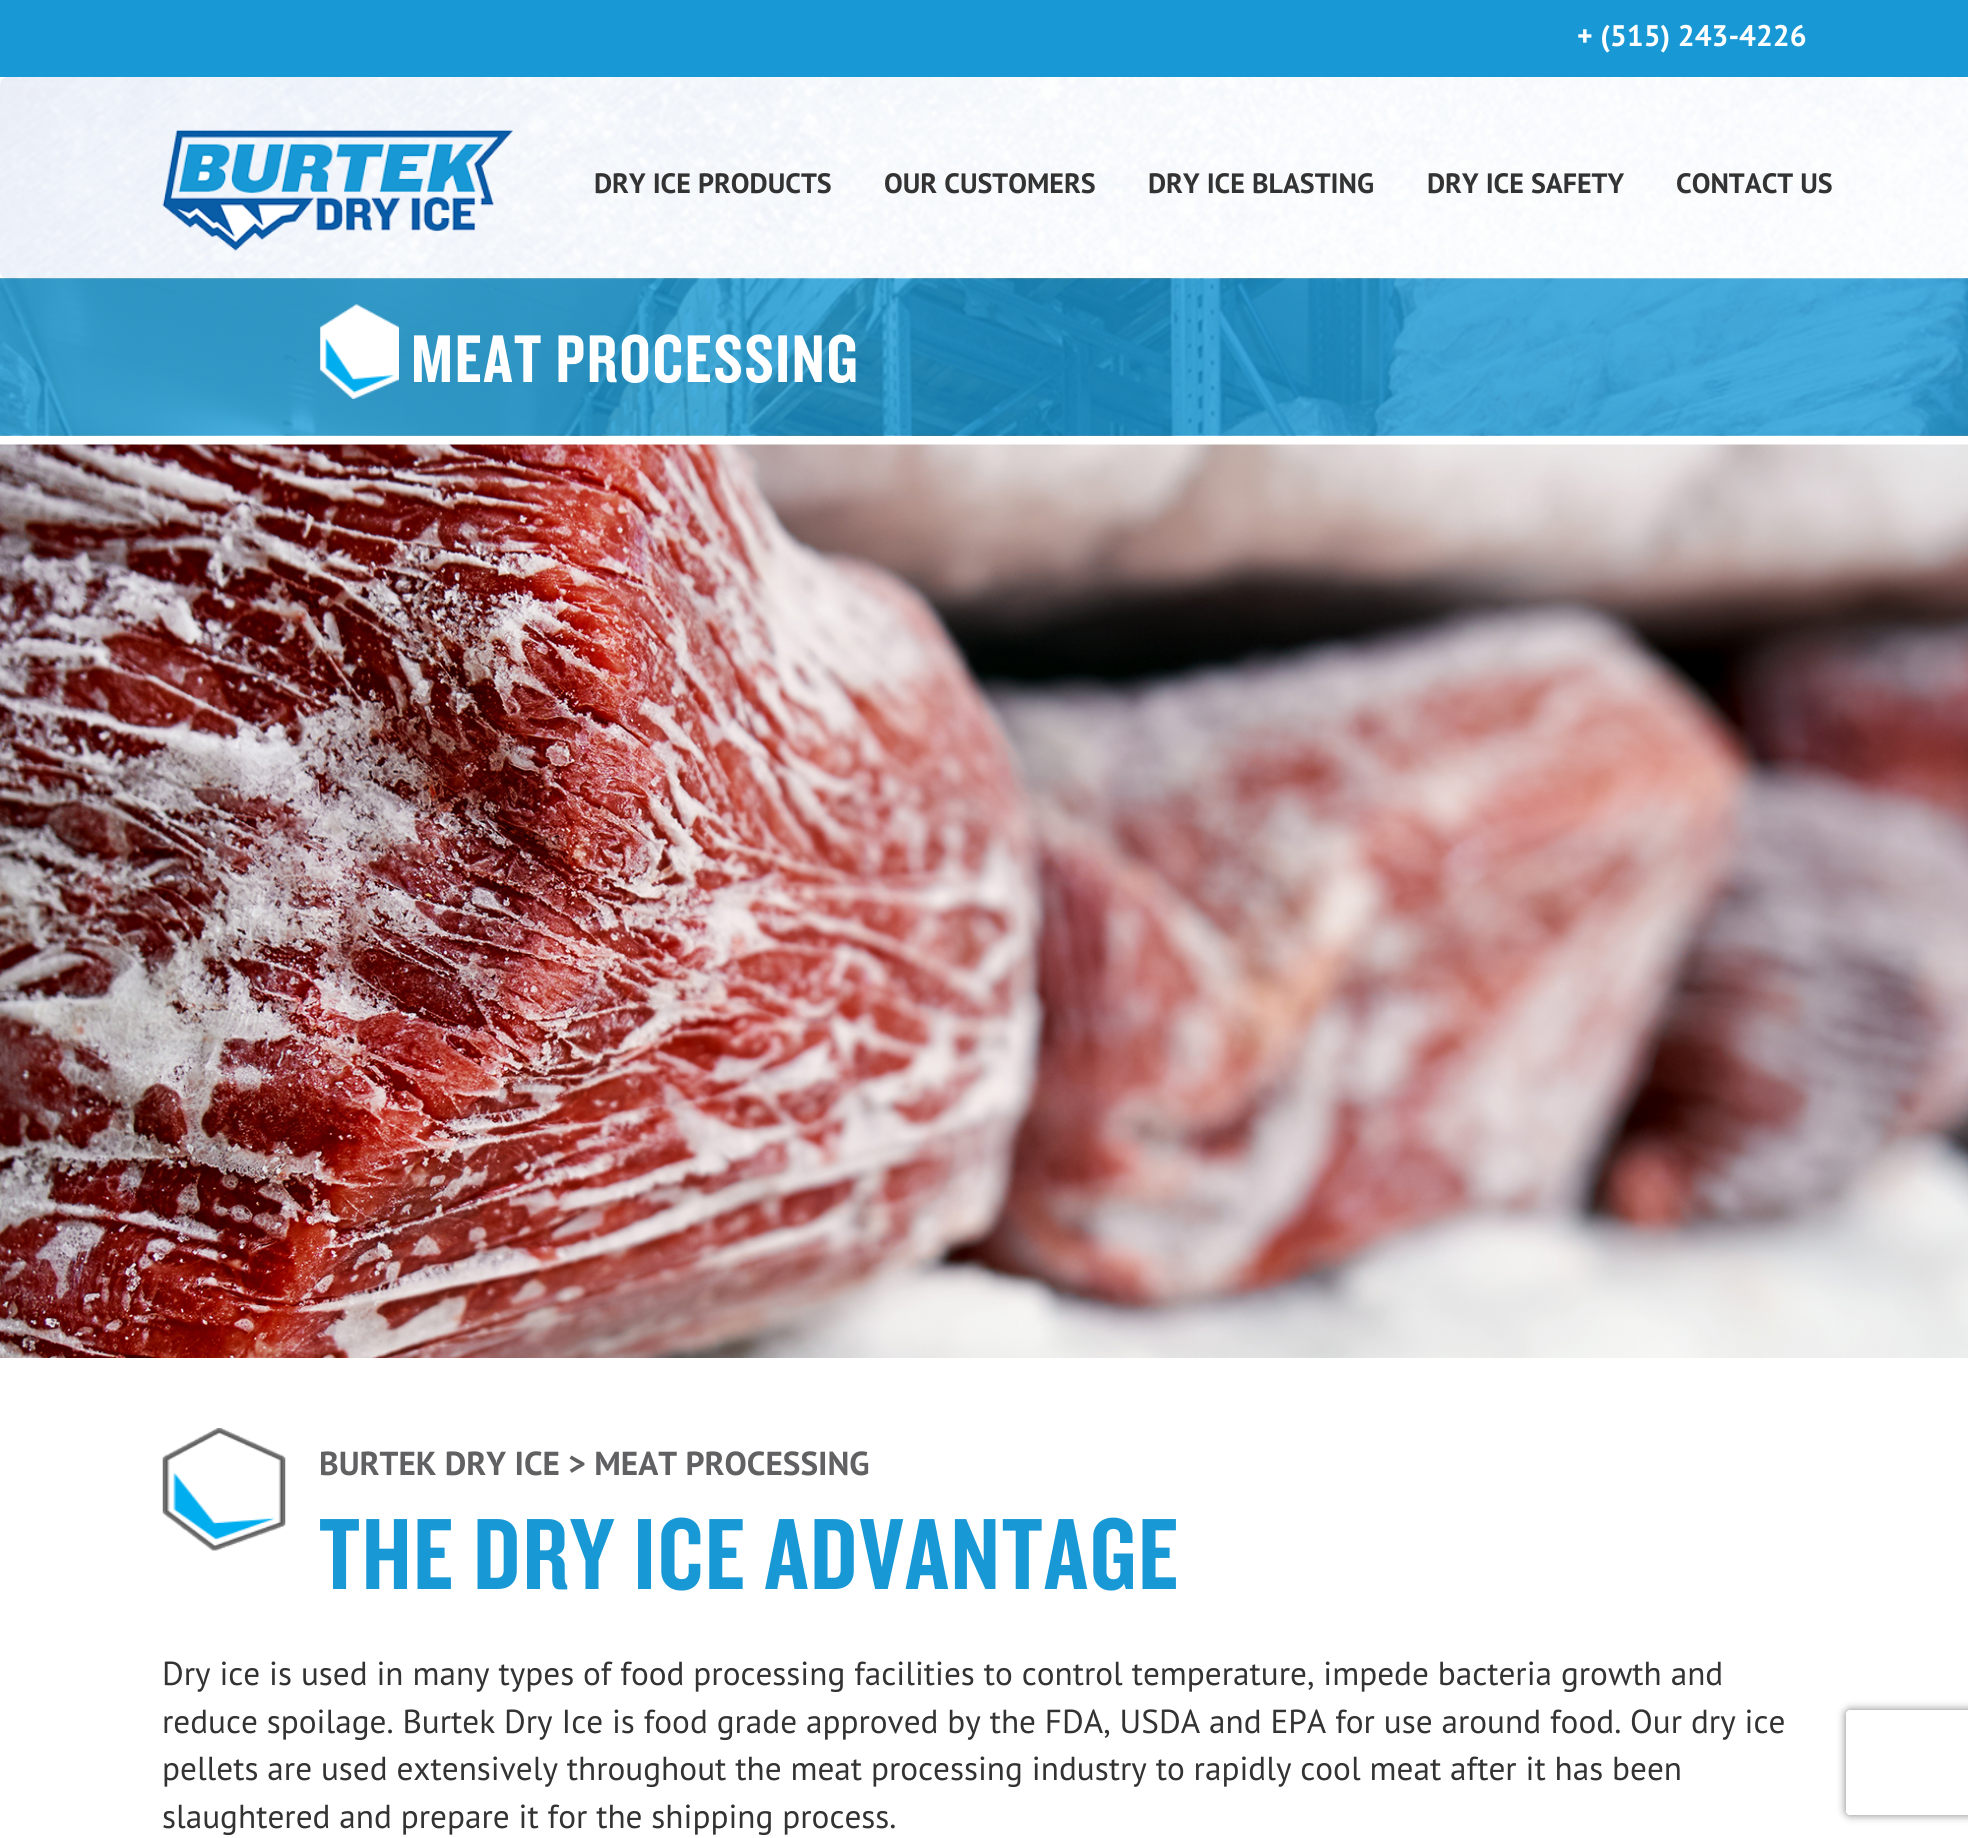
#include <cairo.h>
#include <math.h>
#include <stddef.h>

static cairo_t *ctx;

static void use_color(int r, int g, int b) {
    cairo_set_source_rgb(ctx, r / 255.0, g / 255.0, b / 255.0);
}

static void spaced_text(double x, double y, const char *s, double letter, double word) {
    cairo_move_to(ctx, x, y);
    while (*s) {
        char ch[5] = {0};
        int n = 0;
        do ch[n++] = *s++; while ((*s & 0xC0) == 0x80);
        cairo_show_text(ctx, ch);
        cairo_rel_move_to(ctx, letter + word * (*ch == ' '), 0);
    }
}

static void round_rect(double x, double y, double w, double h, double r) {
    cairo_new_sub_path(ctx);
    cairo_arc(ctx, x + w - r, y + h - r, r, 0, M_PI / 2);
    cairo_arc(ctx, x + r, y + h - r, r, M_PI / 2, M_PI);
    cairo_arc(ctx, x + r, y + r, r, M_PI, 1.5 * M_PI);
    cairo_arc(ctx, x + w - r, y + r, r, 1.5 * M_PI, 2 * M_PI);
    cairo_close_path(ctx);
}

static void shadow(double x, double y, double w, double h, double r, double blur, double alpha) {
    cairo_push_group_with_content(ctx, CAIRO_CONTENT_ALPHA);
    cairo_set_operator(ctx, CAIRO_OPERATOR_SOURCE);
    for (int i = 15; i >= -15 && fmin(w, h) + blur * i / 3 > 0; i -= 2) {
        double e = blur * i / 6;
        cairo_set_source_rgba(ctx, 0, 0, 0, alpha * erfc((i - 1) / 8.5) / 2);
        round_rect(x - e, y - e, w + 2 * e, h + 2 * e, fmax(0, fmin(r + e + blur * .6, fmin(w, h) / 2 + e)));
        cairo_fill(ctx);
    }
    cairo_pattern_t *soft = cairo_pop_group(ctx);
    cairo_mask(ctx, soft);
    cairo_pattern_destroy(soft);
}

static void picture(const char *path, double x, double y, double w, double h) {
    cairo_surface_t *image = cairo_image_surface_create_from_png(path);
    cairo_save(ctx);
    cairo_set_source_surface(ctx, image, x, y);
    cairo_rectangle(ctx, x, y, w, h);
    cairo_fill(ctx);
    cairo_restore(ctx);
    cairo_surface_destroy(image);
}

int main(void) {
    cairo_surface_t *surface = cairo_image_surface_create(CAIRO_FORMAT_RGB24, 1968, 1838);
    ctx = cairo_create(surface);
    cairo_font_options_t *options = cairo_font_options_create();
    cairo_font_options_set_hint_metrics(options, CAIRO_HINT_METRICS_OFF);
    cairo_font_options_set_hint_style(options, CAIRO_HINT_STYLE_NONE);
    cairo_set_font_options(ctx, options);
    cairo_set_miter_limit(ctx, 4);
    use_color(255, 255, 255);
    cairo_paint(ctx);
    use_color(24, 153, 214);
    cairo_rectangle(ctx, 0, 0, 1968, 77);
    cairo_fill(ctx);
    cairo_select_font_face(ctx, "PT Sans", CAIRO_FONT_SLANT_NORMAL, CAIRO_FONT_WEIGHT_BOLD);
    cairo_set_font_size(ctx, 29.75);
    use_color(255, 255, 255);
    cairo_move_to(ctx, 1577, 46);
    cairo_show_text(ctx, "+ (515) 243-4226");
    picture("img3.png", 0, 278, 1968, 158);
    picture("img1.png", 0, 77, 1968, 202);
    picture("img2.png", 162, 129, 351, 122);
    cairo_set_font_size(ctx, 28);
    use_color(51, 51, 51);
    cairo_move_to(ctx, 594, 193);
    cairo_show_text(ctx, "DRY ICE PRODUCTS");
    cairo_move_to(ctx, 884, 193);
    cairo_show_text(ctx, "OUR CUSTOMERS");
    cairo_move_to(ctx, 1148, 193);
    cairo_show_text(ctx, "DRY ICE BLASTING");
    cairo_move_to(ctx, 1427, 193);
    cairo_show_text(ctx, "DRY ICE SAFETY");
    cairo_move_to(ctx, 1676, 193);
    cairo_show_text(ctx, "CONTACT US");
    picture("img4.png", 320, 304, 79, 95);
    cairo_select_font_face(ctx, "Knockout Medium", CAIRO_FONT_SLANT_NORMAL, CAIRO_FONT_WEIGHT_NORMAL);
    cairo_set_font_size(ctx, 70);
    use_color(255, 255, 255);
    spaced_text(411, 382, "MEAT PROCESSING", 1.75, 0);
    picture("img5.png", 0, 444, 1968, 914);
    picture("img6.png", 162, 1428, 124, 123);
    cairo_select_font_face(ctx, "PT Sans", CAIRO_FONT_SLANT_NORMAL, CAIRO_FONT_WEIGHT_BOLD);
    cairo_set_font_size(ctx, 33.25);
    use_color(97, 97, 99);
    cairo_move_to(ctx, 319, 1475);
    cairo_show_text(ctx, "BURTEK DRY ICE > MEAT PROCESSING");
    cairo_select_font_face(ctx, "Knockout Medium", CAIRO_FONT_SLANT_NORMAL, CAIRO_FONT_WEIGHT_NORMAL);
    cairo_set_font_size(ctx, 105);
    use_color(24, 153, 214);
    spaced_text(319, 1589, "THE DRY ICE ADVANTAGE", 1.75, 0);
    cairo_select_font_face(ctx, "PT Sans", CAIRO_FONT_SLANT_NORMAL, CAIRO_FONT_WEIGHT_NORMAL);
    cairo_set_font_size(ctx, 33.25);
    use_color(51, 51, 51);
    cairo_move_to(ctx, 162, 1685);
    cairo_show_text(ctx, "Dry ice is used in many types of food processing facilities to control temperature, impede bacteria growth and");
    cairo_move_to(ctx, 162, 1733);
    cairo_show_text(ctx, "reduce spoilage. Burtek Dry Ice is food grade approved by the FDA, USDA and EPA for use around food. Our dry ice");
    cairo_move_to(ctx, 162, 1780);
    cairo_show_text(ctx, "pellets are used extensively throughout the meat processing industry to rapidly cool meat after it has been");
    cairo_move_to(ctx, 162, 1828);
    cairo_show_text(ctx, "slaughtered and prepare it for the shipping process.");
    cairo_save(ctx);
    cairo_set_fill_rule(ctx, CAIRO_FILL_RULE_EVEN_ODD);
    cairo_new_path(ctx);
    cairo_move_to(ctx, 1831, 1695);
    cairo_line_to(ctx, 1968, 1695);
    cairo_line_to(ctx, 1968, 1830);
    cairo_line_to(ctx, 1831, 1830);
    cairo_close_path(ctx);
    cairo_move_to(ctx, 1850, 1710);
    cairo_line_to(ctx, 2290, 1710);
    cairo_curve_to(ctx, 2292, 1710, 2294, 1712, 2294, 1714);
    cairo_line_to(ctx, 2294, 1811);
    cairo_curve_to(ctx, 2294, 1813, 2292, 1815, 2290, 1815);
    cairo_line_to(ctx, 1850, 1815);
    cairo_curve_to(ctx, 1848, 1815, 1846, 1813, 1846, 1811);
    cairo_line_to(ctx, 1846, 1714);
    cairo_curve_to(ctx, 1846, 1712, 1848, 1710, 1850, 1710);
    cairo_close_path(ctx);
    cairo_clip(ctx);
    use_color(128, 128, 128);
    shadow(1846, 1710, 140, 105, 4, 4.5, 1);
    cairo_restore(ctx);
    cairo_surface_write_to_png(surface, "result.png");
    cairo_font_options_destroy(options);
    cairo_destroy(ctx);
    cairo_surface_destroy(surface);
    return 0;
}
